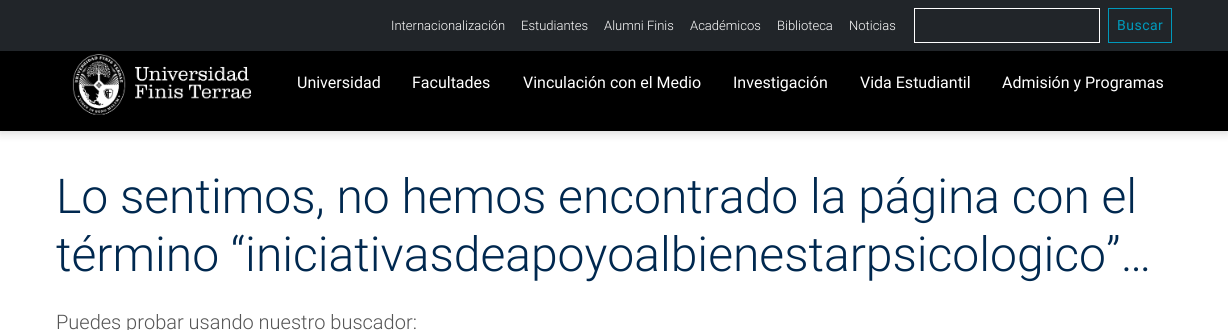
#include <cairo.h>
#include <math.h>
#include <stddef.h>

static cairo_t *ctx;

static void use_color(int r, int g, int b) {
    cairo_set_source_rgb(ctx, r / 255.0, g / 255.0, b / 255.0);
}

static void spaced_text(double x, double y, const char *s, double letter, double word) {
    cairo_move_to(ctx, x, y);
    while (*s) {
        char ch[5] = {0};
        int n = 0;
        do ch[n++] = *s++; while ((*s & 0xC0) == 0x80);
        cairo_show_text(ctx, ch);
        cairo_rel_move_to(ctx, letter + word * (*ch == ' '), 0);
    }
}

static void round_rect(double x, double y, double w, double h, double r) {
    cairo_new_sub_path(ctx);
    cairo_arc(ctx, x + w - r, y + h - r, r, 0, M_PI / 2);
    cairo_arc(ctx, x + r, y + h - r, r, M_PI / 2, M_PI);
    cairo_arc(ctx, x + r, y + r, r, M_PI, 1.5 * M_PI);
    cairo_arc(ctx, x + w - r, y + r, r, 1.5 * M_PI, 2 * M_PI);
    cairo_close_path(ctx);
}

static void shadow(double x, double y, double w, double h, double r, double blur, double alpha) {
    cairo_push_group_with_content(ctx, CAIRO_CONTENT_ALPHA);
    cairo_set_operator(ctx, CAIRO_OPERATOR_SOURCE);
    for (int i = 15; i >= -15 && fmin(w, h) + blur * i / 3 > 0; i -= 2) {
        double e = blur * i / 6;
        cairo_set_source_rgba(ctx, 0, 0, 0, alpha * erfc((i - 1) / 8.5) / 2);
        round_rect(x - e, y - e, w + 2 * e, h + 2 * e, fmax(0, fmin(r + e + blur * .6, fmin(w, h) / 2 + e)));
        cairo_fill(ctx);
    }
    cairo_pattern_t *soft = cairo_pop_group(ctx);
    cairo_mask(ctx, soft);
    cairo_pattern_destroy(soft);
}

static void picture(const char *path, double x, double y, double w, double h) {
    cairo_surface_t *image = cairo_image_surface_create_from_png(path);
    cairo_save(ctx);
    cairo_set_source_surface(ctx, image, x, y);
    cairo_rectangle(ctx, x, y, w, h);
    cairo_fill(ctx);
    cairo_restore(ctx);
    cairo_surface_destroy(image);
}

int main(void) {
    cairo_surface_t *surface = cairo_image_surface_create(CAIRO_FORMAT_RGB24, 1228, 330);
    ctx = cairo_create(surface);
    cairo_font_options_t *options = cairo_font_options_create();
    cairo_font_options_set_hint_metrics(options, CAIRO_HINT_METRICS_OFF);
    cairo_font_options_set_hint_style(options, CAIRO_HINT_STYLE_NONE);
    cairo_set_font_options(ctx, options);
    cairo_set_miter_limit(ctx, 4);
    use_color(255, 255, 255);
    cairo_paint(ctx);
    use_color(0, 0, 0);
    shadow(0, 37, 1228, 96, 0, 5, 0.15);
    use_color(0, 0, 0);
    cairo_rectangle(ctx, 0, 51, 1228, 80);
    cairo_fill(ctx);
    picture("img1.png", 72, 54, 180, 61);
    use_color(0, 0, 0);
    shadow(0, 2, 1228, 51, 0, 2, 0.1);
    use_color(33, 37, 41);
    cairo_rectangle(ctx, 0, 0, 1228, 51);
    cairo_fill(ctx);
    cairo_select_font_face(ctx, "Roboto Light", CAIRO_FONT_SLANT_NORMAL, CAIRO_FONT_WEIGHT_NORMAL);
    cairo_set_font_size(ctx, 13);
    use_color(255, 255, 255);
    cairo_move_to(ctx, 391, 30);
    cairo_show_text(ctx, "Internacionalización");
    cairo_move_to(ctx, 521, 30);
    cairo_show_text(ctx, "Estudiantes");
    cairo_move_to(ctx, 604, 30);
    cairo_show_text(ctx, "Alumni Finis");
    cairo_move_to(ctx, 690, 30);
    cairo_show_text(ctx, "Académicos");
    cairo_move_to(ctx, 777, 30);
    cairo_show_text(ctx, "Biblioteca");
    cairo_move_to(ctx, 849, 30);
    cairo_show_text(ctx, "Noticias");
    cairo_rectangle(ctx, 914.5, 8.5, 185, 34);
    cairo_set_line_width(ctx, 1);
    cairo_stroke(ctx);
    cairo_rectangle(ctx, 1108.5, 8.5, 63, 34);
    use_color(0, 153, 187);
    cairo_stroke(ctx);
    cairo_select_font_face(ctx, "Roboto", CAIRO_FONT_SLANT_NORMAL, CAIRO_FONT_WEIGHT_NORMAL);
    cairo_set_font_size(ctx, 14);
    spaced_text(1117, 30, "Buscar", 0.5, 0);
    cairo_set_font_size(ctx, 16);
    use_color(255, 255, 255);
    cairo_move_to(ctx, 297, 88);
    cairo_show_text(ctx, "Universidad");
    cairo_move_to(ctx, 412, 88);
    cairo_show_text(ctx, "Facultades");
    cairo_move_to(ctx, 523, 88);
    cairo_show_text(ctx, "Vinculación con el Medio");
    cairo_move_to(ctx, 733, 88);
    cairo_show_text(ctx, "Investigación");
    cairo_move_to(ctx, 860, 88);
    cairo_show_text(ctx, "Vida Estudiantil");
    cairo_move_to(ctx, 1002, 88);
    cairo_show_text(ctx, "Admisión y Programas");
    cairo_select_font_face(ctx, "Roboto Light", CAIRO_FONT_SLANT_NORMAL, CAIRO_FONT_WEIGHT_NORMAL);
    cairo_set_font_size(ctx, 48);
    use_color(0, 40, 79);
    cairo_move_to(ctx, 56, 213);
    cairo_show_text(ctx, "Lo sentimos, no hemos encontrado la página con el");
    cairo_move_to(ctx, 56, 271);
    cairo_show_text(ctx, "término “iniciativasdeapoyoalbienestarpsicologico”…");
    cairo_set_font_size(ctx, 20);
    use_color(85, 85, 85);
    cairo_move_to(ctx, 56, 329);
    cairo_show_text(ctx, "Puedes probar usando nuestro buscador:");
    cairo_surface_write_to_png(surface, "result.png");
    cairo_font_options_destroy(options);
    cairo_destroy(ctx);
    cairo_surface_destroy(surface);
    return 0;
}
